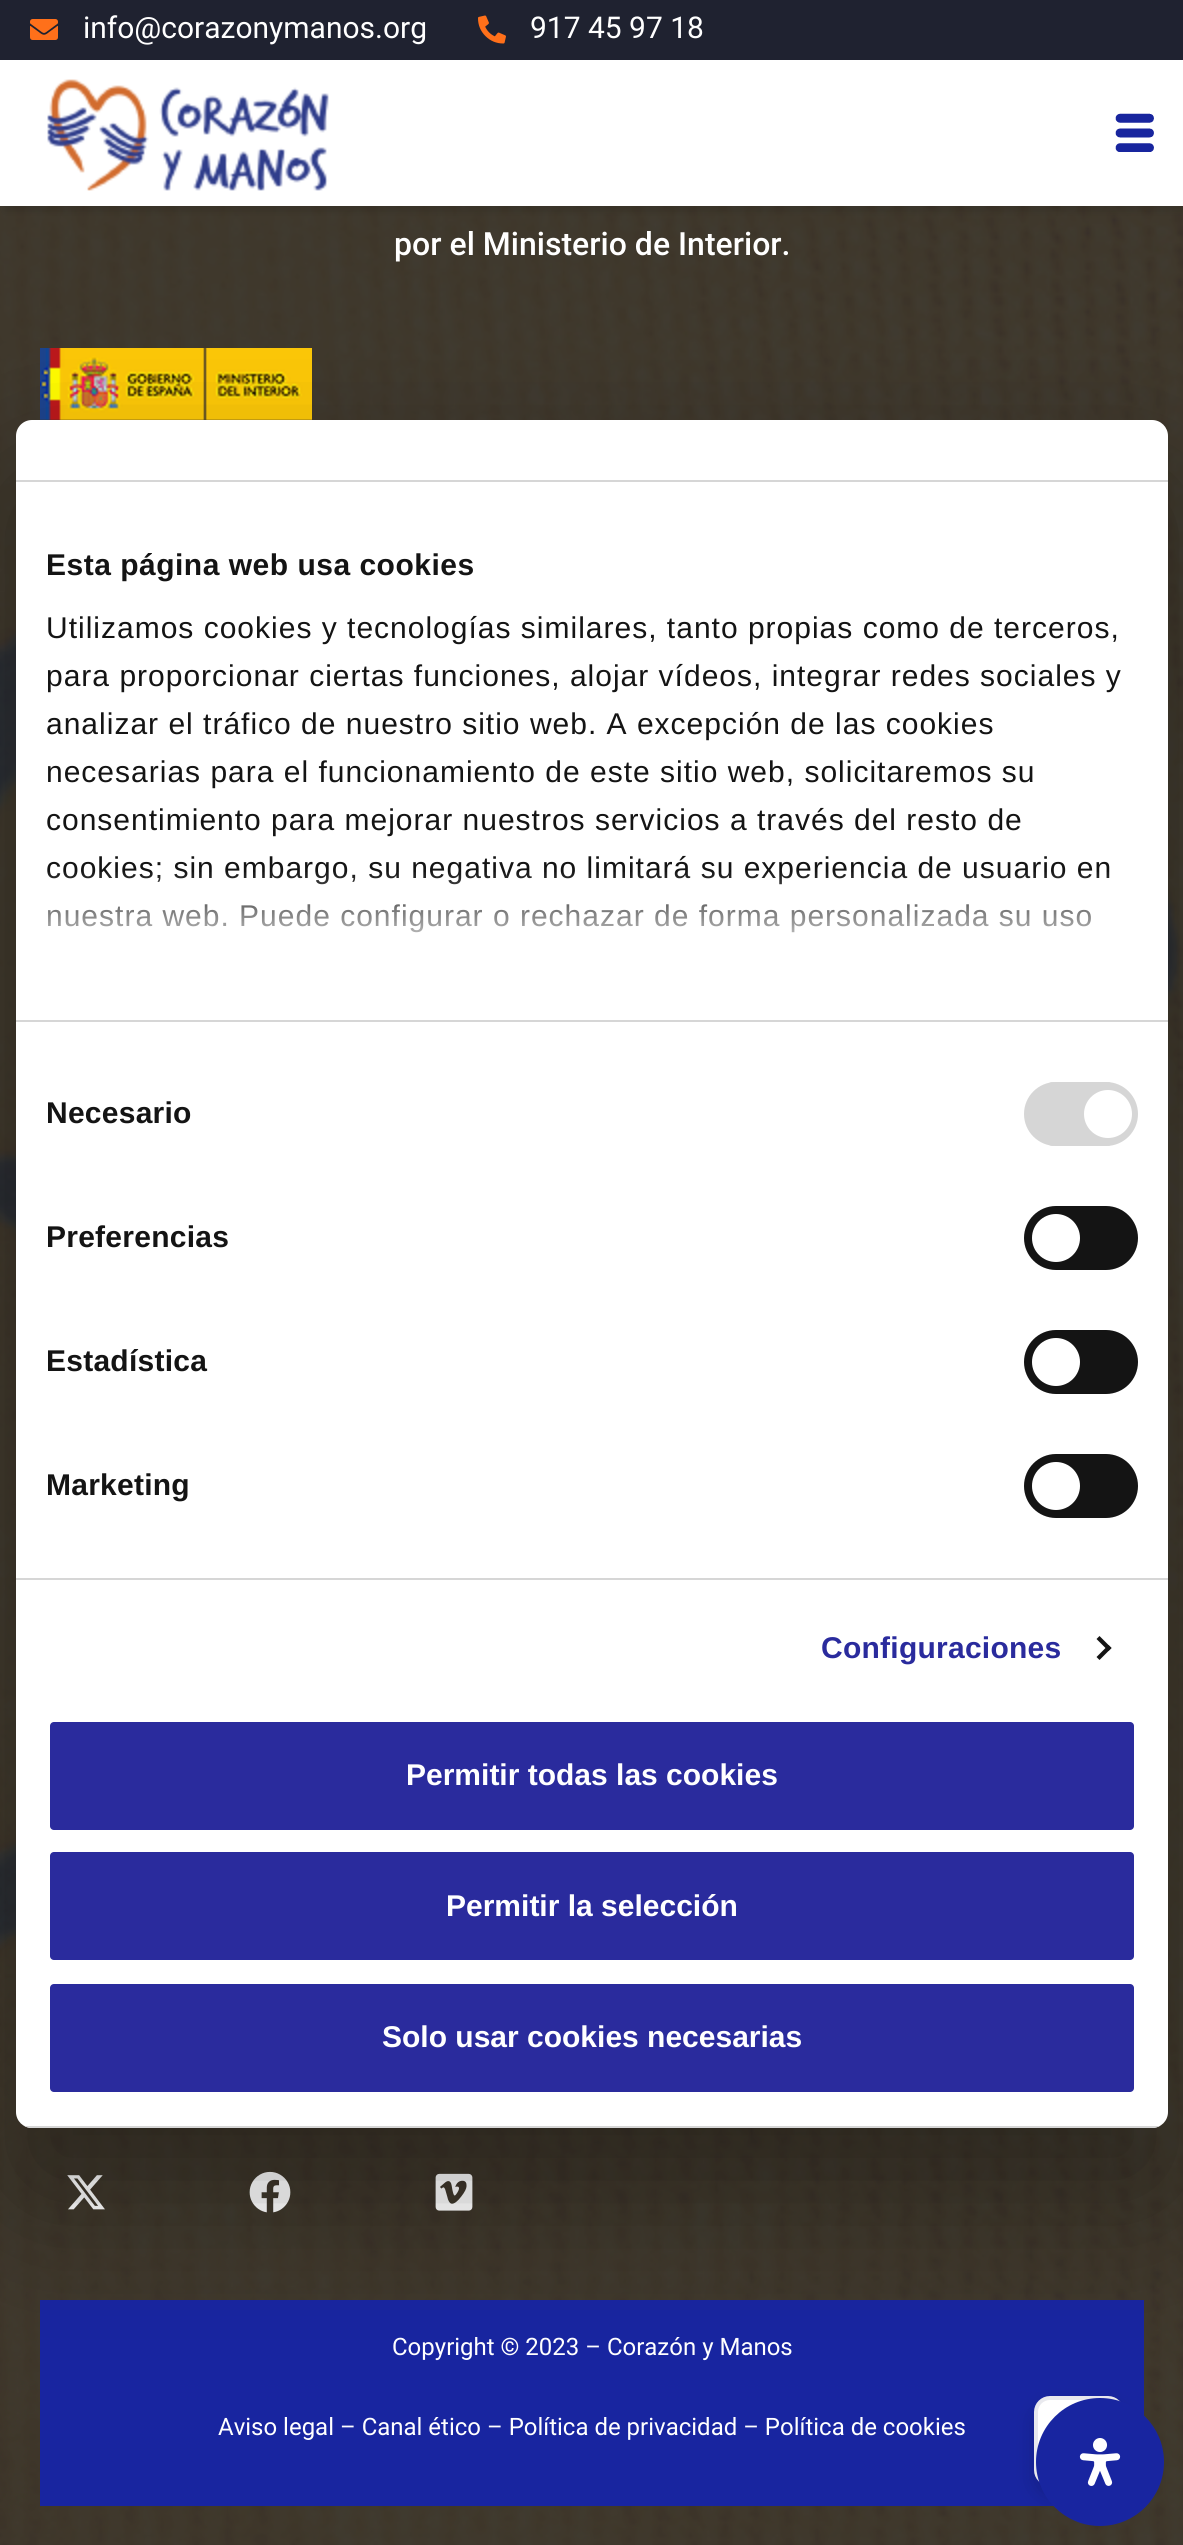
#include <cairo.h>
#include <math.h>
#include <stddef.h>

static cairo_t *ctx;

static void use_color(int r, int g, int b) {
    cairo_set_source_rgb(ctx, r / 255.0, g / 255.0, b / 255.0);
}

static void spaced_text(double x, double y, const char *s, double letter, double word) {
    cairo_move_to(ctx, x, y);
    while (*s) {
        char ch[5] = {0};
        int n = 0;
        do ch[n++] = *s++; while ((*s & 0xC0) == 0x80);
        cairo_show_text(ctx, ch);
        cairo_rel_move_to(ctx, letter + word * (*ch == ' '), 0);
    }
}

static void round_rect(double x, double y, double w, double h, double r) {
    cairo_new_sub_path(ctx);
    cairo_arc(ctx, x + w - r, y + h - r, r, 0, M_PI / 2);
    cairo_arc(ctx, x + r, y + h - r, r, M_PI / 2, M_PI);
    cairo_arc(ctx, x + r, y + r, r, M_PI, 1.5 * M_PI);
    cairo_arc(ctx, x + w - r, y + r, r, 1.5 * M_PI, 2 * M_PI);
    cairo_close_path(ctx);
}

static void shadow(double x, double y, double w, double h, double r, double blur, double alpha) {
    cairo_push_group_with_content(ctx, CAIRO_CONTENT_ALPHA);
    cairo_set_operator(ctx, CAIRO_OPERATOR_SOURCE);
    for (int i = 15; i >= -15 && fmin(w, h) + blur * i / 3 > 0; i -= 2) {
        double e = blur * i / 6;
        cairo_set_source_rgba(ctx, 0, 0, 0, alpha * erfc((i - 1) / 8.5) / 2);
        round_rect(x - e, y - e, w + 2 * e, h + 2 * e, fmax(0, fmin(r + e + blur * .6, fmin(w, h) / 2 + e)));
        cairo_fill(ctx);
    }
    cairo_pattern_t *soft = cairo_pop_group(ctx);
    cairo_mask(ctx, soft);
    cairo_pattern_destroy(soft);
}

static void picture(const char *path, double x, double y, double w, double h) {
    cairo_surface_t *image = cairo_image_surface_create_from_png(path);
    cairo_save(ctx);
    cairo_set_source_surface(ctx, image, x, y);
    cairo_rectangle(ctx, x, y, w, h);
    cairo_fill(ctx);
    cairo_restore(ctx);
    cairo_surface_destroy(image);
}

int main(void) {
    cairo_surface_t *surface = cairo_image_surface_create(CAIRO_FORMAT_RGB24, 1183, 2545);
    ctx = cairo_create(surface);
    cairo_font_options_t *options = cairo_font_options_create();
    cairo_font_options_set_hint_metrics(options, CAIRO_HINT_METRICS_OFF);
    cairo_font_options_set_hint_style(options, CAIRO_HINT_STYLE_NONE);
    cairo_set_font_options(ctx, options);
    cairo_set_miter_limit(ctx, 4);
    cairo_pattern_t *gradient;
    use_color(255, 255, 255);
    cairo_paint(ctx);
    picture("img5.png", 0, 206, 1183, 2339);
    use_color(0, 0, 0);
    shadow(4, 6, 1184, 206, 0, 3, 0.1);
    use_color(31, 34, 48);
    cairo_rectangle(ctx, 0, 0, 1183, 60);
    cairo_fill(ctx);
    picture("img1.png", 30, 19, 28, 21);
    cairo_select_font_face(ctx, "Roboto", CAIRO_FONT_SLANT_NORMAL, CAIRO_FONT_WEIGHT_NORMAL);
    cairo_set_font_size(ctx, 30);
    use_color(255, 255, 255);
    cairo_move_to(ctx, 83, 38);
    cairo_show_text(ctx, "info@corazonymanos.org");
    picture("img2.png", 478, 15, 28, 29);
    cairo_move_to(ctx, 530, 38);
    cairo_show_text(ctx, "917 45 97 18");
    cairo_rectangle(ctx, 0, 60, 1183, 146);
    cairo_fill(ctx);
    picture("img3.png", 47, 79, 282, 112);
    picture("img4.png", 1115, 113, 39, 39);
    cairo_select_font_face(ctx, "Roboto Medium", CAIRO_FONT_SLANT_NORMAL, CAIRO_FONT_WEIGHT_NORMAL);
    cairo_set_font_size(ctx, 32);
    cairo_move_to(ctx, 394, 255);
    cairo_show_text(ctx, "por el Ministerio de Interior.");
    picture("img6.png", 40, 348, 272, 72);
    picture("img7.png", 67, 2175, 38, 35);
    picture("img8.png", 249, 2171, 42, 42);
    picture("img9.png", 435, 2173, 38, 38);
    use_color(24, 37, 160);
    cairo_rectangle(ctx, 40, 2300, 1104, 206);
    cairo_fill(ctx);
    cairo_select_font_face(ctx, "Roboto", CAIRO_FONT_SLANT_NORMAL, CAIRO_FONT_WEIGHT_NORMAL);
    cairo_set_font_size(ctx, 24);
    use_color(255, 255, 255);
    cairo_move_to(ctx, 392, 2355);
    cairo_show_text(ctx, "Copyright © 2023 – Corazón y Manos");
    cairo_move_to(ctx, 218, 2435);
    cairo_show_text(ctx, "Aviso legal – Canal ético – Política de privacidad – Política de cookies");
    use_color(0, 0, 0);
    shadow(1034, 2406, 90, 90, 16, 10, 0.16);
    use_color(255, 255, 255);
    round_rect(1036, 2398, 86, 86, 14);
    cairo_fill_preserve(ctx);
    use_color(233, 233, 238);
    cairo_set_line_width(ctx, 4);
    cairo_stroke(ctx);
    use_color(0, 0, 0);
    shadow(16, 484, 1152, 1708, 16, 68, 0.3);
    use_color(255, 255, 255);
    round_rect(16, 420, 1152, 1708, 16);
    cairo_fill(ctx);
    use_color(214, 214, 214);
    cairo_rectangle(ctx, 16, 480, 1152, 2);
    cairo_fill(ctx);
    cairo_rectangle(ctx, 16, 1020, 1152, 2);
    cairo_fill(ctx);
    cairo_select_font_face(ctx, "Liberation Sans", CAIRO_FONT_SLANT_NORMAL, CAIRO_FONT_WEIGHT_BOLD);
    cairo_set_font_size(ctx, 30);
    use_color(20, 20, 20);
    spaced_text(46, 575, "Esta página web usa cookies", 0.5, 0);
    cairo_select_font_face(ctx, "Liberation Sans", CAIRO_FONT_SLANT_NORMAL, CAIRO_FONT_WEIGHT_NORMAL);
    spaced_text(46, 638, "Utilizamos cookies y tecnologías similares, tanto propias como de terceros,", 1, 0);
    spaced_text(46, 686, "para proporcionar ciertas funciones, alojar vídeos, integrar redes sociales y", 1, 0);
    spaced_text(46, 734, "analizar el tráfico de nuestro sitio web. A excepción de las cookies", 1, 0);
    spaced_text(46, 782, "necesarias para el funcionamiento de este sitio web, solicitaremos su", 1, 0);
    spaced_text(46, 830, "consentimiento para mejorar nuestros servicios a través del resto de", 1, 0);
    spaced_text(46, 878, "cookies; sin embargo, su negativa no limitará su experiencia de usuario en", 1, 0);
    spaced_text(46, 926, "nuestra web. Puede configurar o rechazar de forma personalizada su uso", 1, 0);
    gradient = cairo_pattern_create_linear(579, 1020, 579, 870);
    cairo_pattern_add_color_stop_rgba(gradient, 0, 1, 1, 1, 1);
    cairo_pattern_add_color_stop_rgba(gradient, 0.5, 1, 1, 1, 0.8);
    cairo_pattern_add_color_stop_rgba(gradient, 1, 1, 1, 1, 0);
    cairo_set_source(ctx, gradient);
    cairo_pattern_destroy(gradient);
    cairo_rectangle(ctx, 47, 872, 1063, 61);
    cairo_fill(ctx);
    use_color(214, 214, 214);
    cairo_rectangle(ctx, 16, 1578, 1152, 2);
    cairo_fill(ctx);
    cairo_select_font_face(ctx, "Liberation Sans", CAIRO_FONT_SLANT_NORMAL, CAIRO_FONT_WEIGHT_BOLD);
    use_color(20, 20, 20);
    spaced_text(46, 1123, "Necesario", 0.25, 0);
    use_color(222, 222, 222);
    round_rect(1048, 1082, 64, 64, 4);
    cairo_fill(ctx);
    use_color(214, 214, 214);
    round_rect(1024, 1082, 114, 64, 32);
    cairo_fill(ctx);
    use_color(255, 255, 255);
    cairo_arc(ctx, 1108, 1114, 24, 0, 2 * M_PI);
    cairo_fill(ctx);
    use_color(20, 20, 20);
    spaced_text(46, 1247, "Preferencias", 0.25, 0);
    round_rect(1024, 1206, 114, 64, 32);
    cairo_fill(ctx);
    use_color(255, 255, 255);
    cairo_arc(ctx, 1056, 1238, 24, 0, 2 * M_PI);
    cairo_fill(ctx);
    use_color(20, 20, 20);
    spaced_text(46, 1371, "Estadística", 0.25, 0);
    round_rect(1024, 1330, 114, 64, 32);
    cairo_fill(ctx);
    use_color(255, 255, 255);
    cairo_arc(ctx, 1056, 1362, 24, 0, 2 * M_PI);
    cairo_fill(ctx);
    use_color(20, 20, 20);
    spaced_text(46, 1495, "Marketing", 0.25, 0);
    round_rect(1024, 1454, 114, 64, 32);
    cairo_fill(ctx);
    use_color(255, 255, 255);
    cairo_arc(ctx, 1056, 1486, 24, 0, 2 * M_PI);
    cairo_fill(ctx);
    use_color(42, 43, 157);
    spaced_text(821, 1658, "Configuraciones", 0.25, 0);
    use_color(20, 20, 20);
    cairo_new_path(ctx);
    cairo_move_to(ctx, 1099.5, 1636);
    cairo_line_to(ctx, 1111.5, 1648);
    cairo_line_to(ctx, 1108.5, 1651);
    cairo_line_to(ctx, 1096.5, 1639);
    cairo_close_path(ctx);
    cairo_fill(ctx);
    cairo_new_path(ctx);
    cairo_move_to(ctx, 1108.5, 1645);
    cairo_line_to(ctx, 1111.5, 1648);
    cairo_line_to(ctx, 1099.5, 1660);
    cairo_line_to(ctx, 1096.5, 1657);
    cairo_close_path(ctx);
    cairo_fill(ctx);
    cairo_save(ctx);
    round_rect(16, 420, 1152, 1708, 16);
    cairo_clip(ctx);
    use_color(214, 214, 214);
    cairo_rectangle(ctx, 16, 2126, 1152, 2);
    cairo_fill(ctx);
    cairo_restore(ctx);
    use_color(42, 43, 157);
    round_rect(48, 1720, 1088, 112, 6);
    cairo_fill_preserve(ctx);
    use_color(255, 255, 255);
    cairo_stroke(ctx);
    cairo_move_to(ctx, 406, 1785);
    cairo_show_text(ctx, "Permitir todas las cookies");
    use_color(42, 43, 157);
    round_rect(48, 1850, 1088, 112, 6);
    cairo_fill_preserve(ctx);
    use_color(255, 255, 255);
    cairo_stroke(ctx);
    cairo_move_to(ctx, 446, 1916);
    cairo_show_text(ctx, "Permitir la selección");
    use_color(42, 43, 157);
    round_rect(48, 1982, 1088, 112, 6);
    cairo_fill_preserve(ctx);
    use_color(255, 255, 255);
    cairo_stroke(ctx);
    cairo_move_to(ctx, 382, 2047);
    cairo_show_text(ctx, "Solo usar cookies necesarias");
    use_color(24, 37, 160);
    cairo_new_path(ctx);
    cairo_arc(ctx, 1100, 2462, 64, 0, 2 * M_PI);
    cairo_fill(ctx);
    picture("img10.png", 1079, 2438, 42, 48);
    cairo_surface_write_to_png(surface, "result.png");
    cairo_font_options_destroy(options);
    cairo_destroy(ctx);
    cairo_surface_destroy(surface);
    return 0;
}
